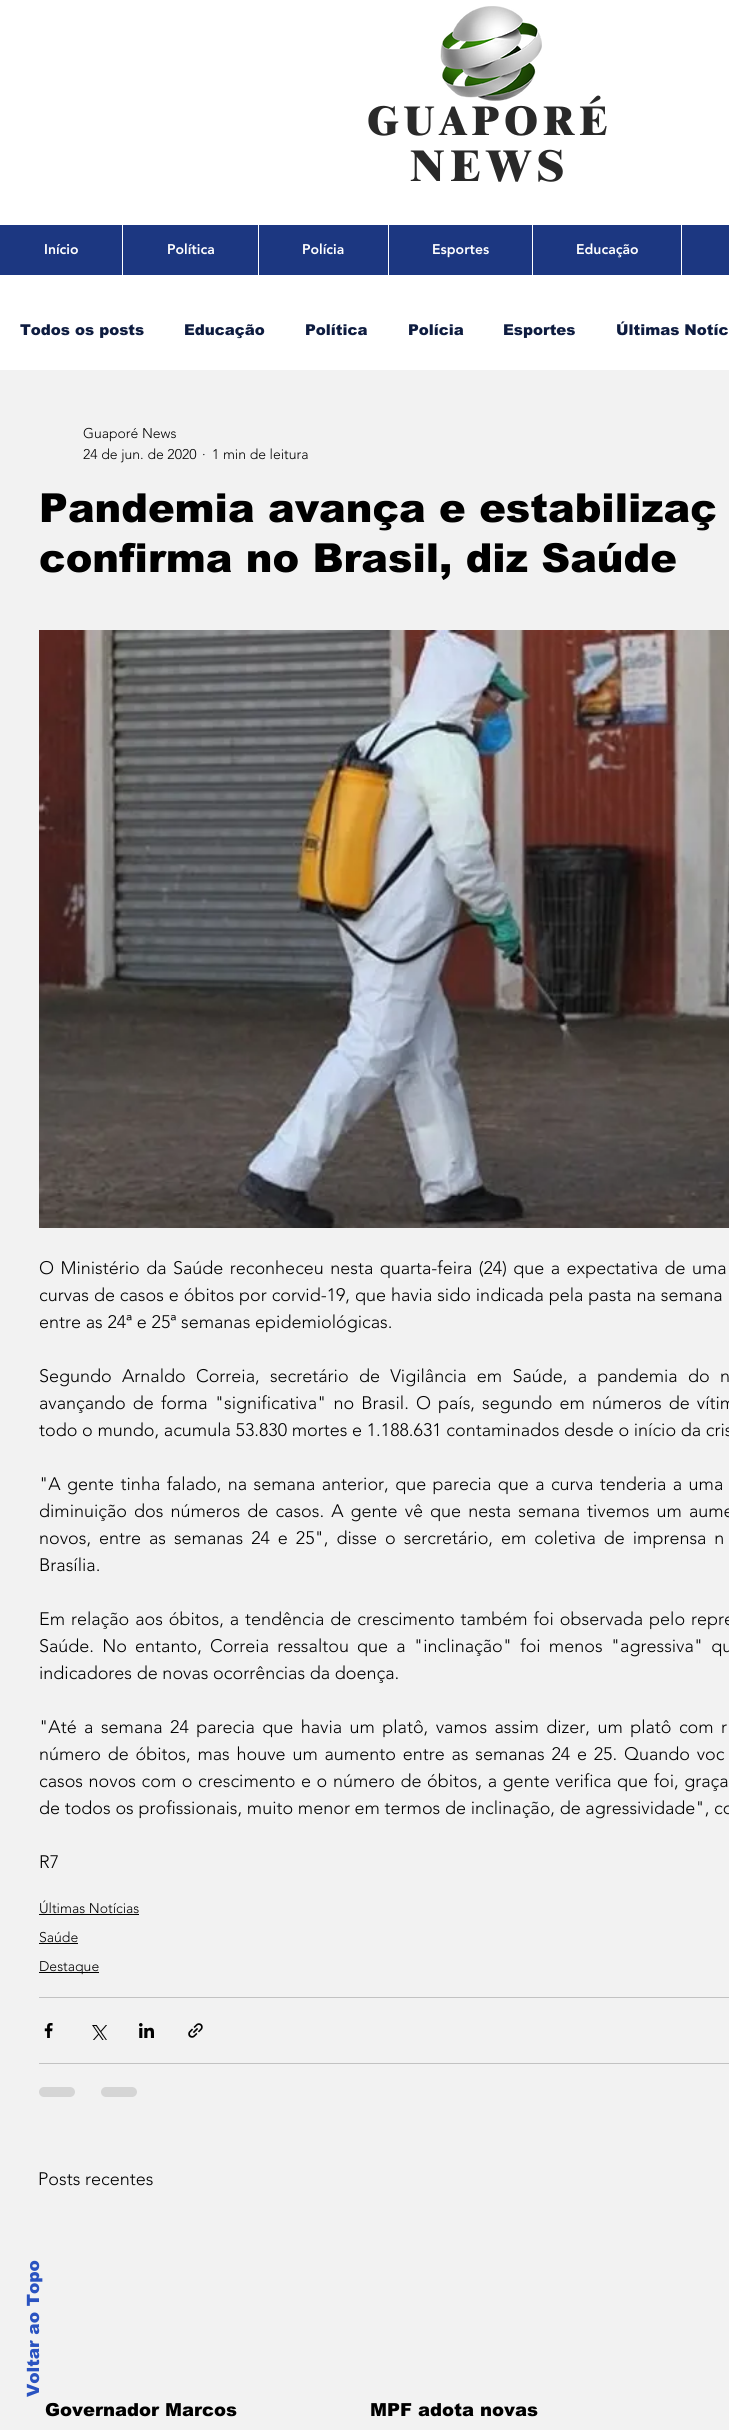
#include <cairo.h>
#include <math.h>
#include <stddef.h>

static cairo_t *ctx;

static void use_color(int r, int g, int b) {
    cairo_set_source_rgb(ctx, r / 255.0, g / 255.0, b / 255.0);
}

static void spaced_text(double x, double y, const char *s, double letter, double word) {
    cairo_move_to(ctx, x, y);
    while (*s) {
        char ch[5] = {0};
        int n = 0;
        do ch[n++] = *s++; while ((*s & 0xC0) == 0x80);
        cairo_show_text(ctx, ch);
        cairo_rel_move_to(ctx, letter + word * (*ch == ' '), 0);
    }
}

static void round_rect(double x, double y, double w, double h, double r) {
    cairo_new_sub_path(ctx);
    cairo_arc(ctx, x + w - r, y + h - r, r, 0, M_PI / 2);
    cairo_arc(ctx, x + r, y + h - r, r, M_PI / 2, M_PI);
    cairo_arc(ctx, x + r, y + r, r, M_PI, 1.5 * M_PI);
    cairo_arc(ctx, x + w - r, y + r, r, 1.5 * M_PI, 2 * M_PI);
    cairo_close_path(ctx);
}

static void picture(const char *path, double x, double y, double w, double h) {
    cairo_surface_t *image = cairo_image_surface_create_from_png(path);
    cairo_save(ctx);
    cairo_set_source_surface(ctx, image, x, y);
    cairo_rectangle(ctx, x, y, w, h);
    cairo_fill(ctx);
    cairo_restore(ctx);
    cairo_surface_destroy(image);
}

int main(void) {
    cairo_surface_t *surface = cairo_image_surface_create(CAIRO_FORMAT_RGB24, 729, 2430);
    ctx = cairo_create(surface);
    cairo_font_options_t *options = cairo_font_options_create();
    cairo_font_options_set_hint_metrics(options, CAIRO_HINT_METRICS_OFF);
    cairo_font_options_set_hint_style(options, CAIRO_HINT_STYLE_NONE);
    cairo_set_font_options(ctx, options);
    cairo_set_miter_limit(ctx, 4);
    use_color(255, 255, 255);
    cairo_paint(ctx);
    picture("img1.png", 440, 6, 102, 95);
    cairo_select_font_face(ctx, "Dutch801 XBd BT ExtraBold", CAIRO_FONT_SLANT_NORMAL, CAIRO_FONT_WEIGHT_NORMAL);
    cairo_set_font_size(ctx, 42);
    use_color(41, 41, 41);
    spaced_text(367, 135, "GUAPORÉ", 5, 0);
    cairo_set_font_size(ctx, 45);
    spaced_text(410, 181, "NEWS", 5.5, 0);
    use_color(28, 55, 129);
    cairo_rectangle(ctx, 0, 225, 729, 50);
    cairo_fill(ctx);
    cairo_select_font_face(ctx, "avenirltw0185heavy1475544 Black", CAIRO_FONT_SLANT_NORMAL, CAIRO_FONT_WEIGHT_NORMAL);
    cairo_set_font_size(ctx, 14);
    use_color(255, 255, 255);
    cairo_move_to(ctx, 44, 254);
    cairo_show_text(ctx, "Início");
    cairo_rectangle(ctx, 122, 225, 1, 50);
    cairo_fill(ctx);
    cairo_move_to(ctx, 167, 254);
    cairo_show_text(ctx, "Política");
    cairo_rectangle(ctx, 258, 225, 1, 50);
    cairo_fill(ctx);
    cairo_move_to(ctx, 302, 254);
    cairo_show_text(ctx, "Polícia");
    cairo_rectangle(ctx, 388, 225, 1, 50);
    cairo_fill(ctx);
    cairo_move_to(ctx, 432, 254);
    cairo_show_text(ctx, "Esportes");
    cairo_rectangle(ctx, 532, 225, 1, 50);
    cairo_fill(ctx);
    cairo_move_to(ctx, 576, 254);
    cairo_show_text(ctx, "Educação");
    cairo_rectangle(ctx, 681, 225, 1, 50);
    cairo_fill(ctx);
    use_color(242, 242, 242);
    cairo_rectangle(ctx, 0, 370, 729, 2060);
    cairo_fill(ctx);
    cairo_select_font_face(ctx, "arial Black", CAIRO_FONT_SLANT_NORMAL, CAIRO_FONT_WEIGHT_NORMAL);
    cairo_set_font_size(ctx, 15);
    use_color(14, 28, 64);
    cairo_move_to(ctx, 20, 335);
    cairo_show_text(ctx, "Todos os posts");
    cairo_move_to(ctx, 184, 335);
    cairo_show_text(ctx, "Educação");
    cairo_move_to(ctx, 305, 335);
    cairo_show_text(ctx, "Política");
    cairo_move_to(ctx, 408, 335);
    cairo_show_text(ctx, "Polícia");
    cairo_move_to(ctx, 503, 335);
    cairo_show_text(ctx, "Esportes");
    cairo_move_to(ctx, 616, 335);
    cairo_show_text(ctx, "Últimas Notíc");
    cairo_select_font_face(ctx, "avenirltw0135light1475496 Light", CAIRO_FONT_SLANT_NORMAL, CAIRO_FONT_WEIGHT_NORMAL);
    cairo_set_font_size(ctx, 14);
    use_color(0, 0, 0);
    cairo_move_to(ctx, 83, 438);
    cairo_show_text(ctx, "Guaporé News");
    cairo_move_to(ctx, 83, 459);
    cairo_show_text(ctx, "24 de jun. de 2020");
    cairo_move_to(ctx, 202, 459);
    cairo_show_text(ctx, "·");
    cairo_move_to(ctx, 212, 459);
    cairo_show_text(ctx, "1 min de leitura");
    cairo_select_font_face(ctx, "arial Black", CAIRO_FONT_SLANT_NORMAL, CAIRO_FONT_WEIGHT_NORMAL);
    cairo_set_font_size(ctx, 40);
    cairo_move_to(ctx, 39, 522);
    cairo_show_text(ctx, "Pandemia avança e estabilizaç");
    cairo_move_to(ctx, 39, 572);
    cairo_show_text(ctx, "confirma no Brasil, diz Saúde");
    picture("img2.png", 39, 630, 690, 598);
    cairo_select_font_face(ctx, "avenirltw0135light1475496 Light", CAIRO_FONT_SLANT_NORMAL, CAIRO_FONT_WEIGHT_NORMAL);
    cairo_set_font_size(ctx, 18);
    spaced_text(39, 1274, "O Ministério da Saúde reconheceu nesta quarta-feira (24) que a expectativa de uma", 0, 1.75);
    spaced_text(39, 1301, "curvas de casos e óbitos por corvid-19, que havia sido indicada pela pasta na semana", 0, 0.25);
    cairo_move_to(ctx, 39, 1328);
    cairo_show_text(ctx, "entre as 24ª e 25ª semanas epidemiológicas.");
    spaced_text(39, 1382, "Segundo Arnaldo Correia, secretário de Vigilância em Saúde, a pandemia do n", 0, 5.6);
    spaced_text(39, 1409, "avançando de forma \"significativa\" no Brasil. O país, segundo em números de vítim", 0, 2.4);
    cairo_move_to(ctx, 39, 1436);
    cairo_show_text(ctx, "todo o mundo, acumula 53.830 mortes e 1.188.631 contaminados desde o início da cris");
    spaced_text(39, 1490, "\"A gente tinha falado, na semana anterior, que parecia que a curva tenderia a uma", 0, 1.75);
    spaced_text(39, 1517, "diminuição dos números de casos. A gente vê que nesta semana tivemos um aume", 0, 2.4);
    spaced_text(39, 1544, "novos, entre as semanas 24 e 25\", disse o sercretário, em coletiva de imprensa n", 0, 3.25);
    cairo_move_to(ctx, 39, 1571);
    cairo_show_text(ctx, "Brasília.");
    spaced_text(39, 1625, "Em relação aos óbitos, a tendência de crescimento também foi observada pelo repre", 0, 1.25);
    spaced_text(39, 1652, "Saúde. No entanto, Correia ressaltou que a \"inclinação\" foi menos \"agressiva\" qu", 0, 3.5);
    cairo_move_to(ctx, 39, 1679);
    cairo_show_text(ctx, "indicadores de novas ocorrências da doença.");
    spaced_text(39, 1733, "\"Até a semana 24 parecia que havia um platô, vamos assim dizer, um platô com r", 0, 2.75);
    spaced_text(39, 1760, "número de óbitos, mas houve um aumento entre as semanas 24 e 25. Quando voc", 0, 2.1);
    spaced_text(39, 1787, "casos novos com o crescimento e o número de óbitos, a gente verifica que foi, graça", 0, 0.9);
    cairo_move_to(ctx, 39, 1814);
    cairo_show_text(ctx, "de todos os profissionais, muito menor em termos de inclinação, de agressividade\", co");
    cairo_move_to(ctx, 39, 1868);
    cairo_show_text(ctx, "R7");
    cairo_set_font_size(ctx, 14);
    cairo_move_to(ctx, 39, 1913);
    cairo_show_text(ctx, "Últimas Notícias");
    cairo_rectangle(ctx, 39, 1914, 100, 1);
    cairo_fill(ctx);
    cairo_move_to(ctx, 39, 1942);
    cairo_show_text(ctx, "Saúde");
    cairo_rectangle(ctx, 39, 1943, 39, 1);
    cairo_fill(ctx);
    cairo_rectangle(ctx, 39, 1972, 60, 1);
    cairo_fill(ctx);
    cairo_move_to(ctx, 39, 1971);
    cairo_show_text(ctx, "Destaque");
    use_color(194, 194, 194);
    cairo_rectangle(ctx, 39, 1997, 690, 1);
    cairo_fill(ctx);
    picture("img3.png", 44, 2023, 9, 15);
    picture("img4.png", 92, 2025, 15, 15);
    picture("img5.png", 139, 2023, 15, 15);
    picture("img6.png", 188, 2023, 15, 15);
    cairo_rectangle(ctx, 39, 2063, 690, 1);
    cairo_fill(ctx);
    use_color(213, 213, 213);
    round_rect(39, 2087, 36, 10, 5);
    cairo_fill(ctx);
    round_rect(101, 2087, 36, 10, 5);
    cairo_fill(ctx);
    cairo_set_font_size(ctx, 18);
    use_color(0, 0, 0);
    cairo_move_to(ctx, 38, 2185);
    cairo_show_text(ctx, "Posts recentes");
    cairo_select_font_face(ctx, "arial Black", CAIRO_FONT_SLANT_NORMAL, CAIRO_FONT_WEIGHT_NORMAL);
    cairo_move_to(ctx, 45, 2416);
    cairo_show_text(ctx, "Governador Marcos");
    cairo_move_to(ctx, 370, 2416);
    cairo_show_text(ctx, "MPF adota novas");
    cairo_set_font_size(ctx, 17);
    use_color(42, 83, 193);
    cairo_save(ctx);
    cairo_translate(ctx, 39, 2397);
    cairo_rotate(ctx, -90 * M_PI / 180);
    cairo_move_to(ctx, 0, 0);
    cairo_show_text(ctx, "Voltar ao Topo");
    cairo_restore(ctx);
    cairo_surface_write_to_png(surface, "result.png");
    cairo_font_options_destroy(options);
    cairo_destroy(ctx);
    cairo_surface_destroy(surface);
    return 0;
}
